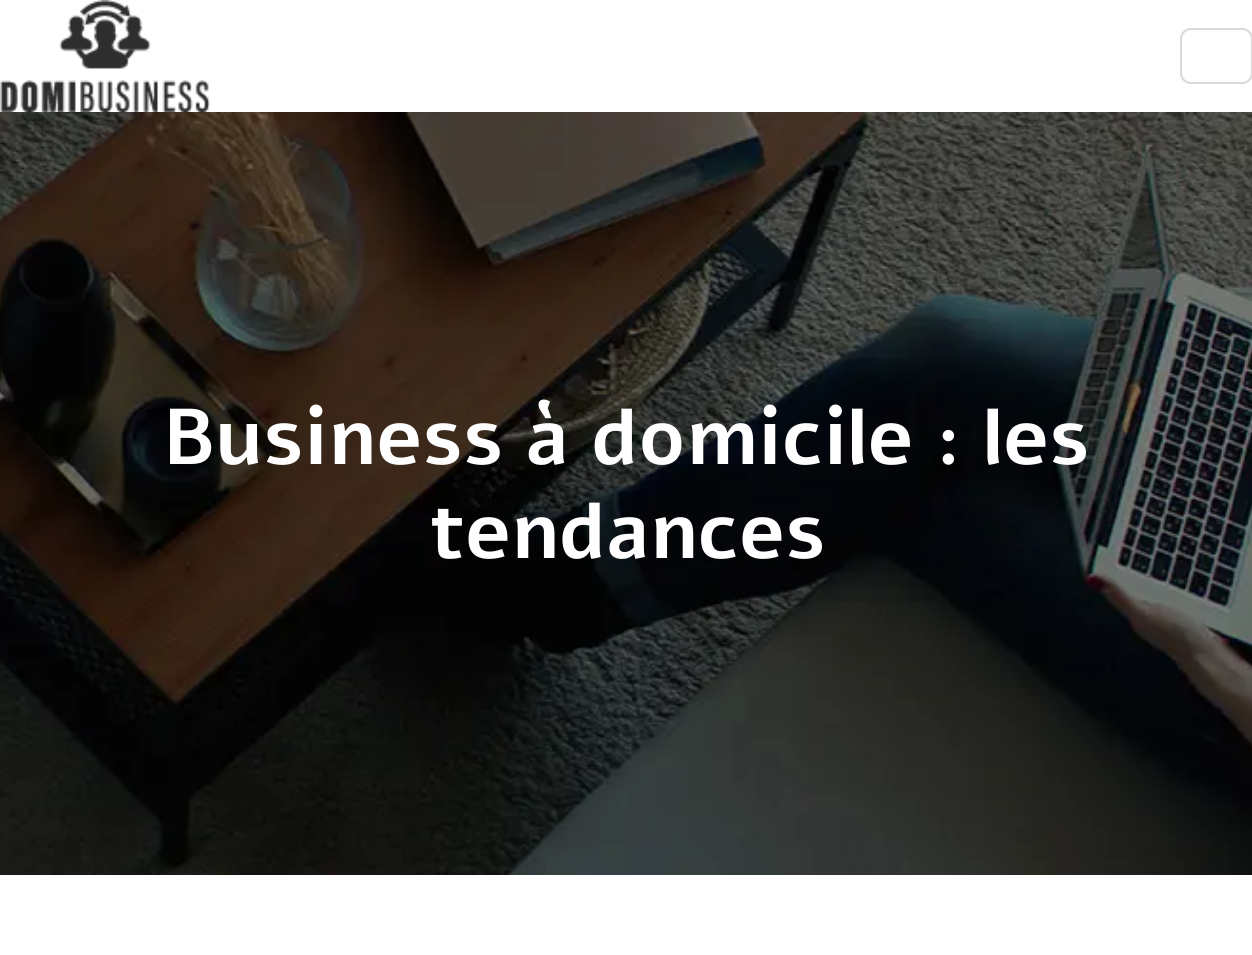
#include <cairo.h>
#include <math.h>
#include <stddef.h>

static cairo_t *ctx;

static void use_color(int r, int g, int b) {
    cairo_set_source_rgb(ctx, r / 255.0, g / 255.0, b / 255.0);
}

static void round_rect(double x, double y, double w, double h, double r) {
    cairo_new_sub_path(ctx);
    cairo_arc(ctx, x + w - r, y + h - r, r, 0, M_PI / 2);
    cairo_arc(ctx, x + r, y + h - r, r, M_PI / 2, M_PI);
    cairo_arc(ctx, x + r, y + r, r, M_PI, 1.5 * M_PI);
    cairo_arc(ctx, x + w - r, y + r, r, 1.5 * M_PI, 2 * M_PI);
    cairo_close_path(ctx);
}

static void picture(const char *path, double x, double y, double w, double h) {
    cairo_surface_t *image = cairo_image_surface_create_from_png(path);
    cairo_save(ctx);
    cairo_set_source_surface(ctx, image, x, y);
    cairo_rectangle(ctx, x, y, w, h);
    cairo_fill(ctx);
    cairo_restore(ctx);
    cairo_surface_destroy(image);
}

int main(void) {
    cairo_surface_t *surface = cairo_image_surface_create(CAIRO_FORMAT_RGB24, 1252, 955);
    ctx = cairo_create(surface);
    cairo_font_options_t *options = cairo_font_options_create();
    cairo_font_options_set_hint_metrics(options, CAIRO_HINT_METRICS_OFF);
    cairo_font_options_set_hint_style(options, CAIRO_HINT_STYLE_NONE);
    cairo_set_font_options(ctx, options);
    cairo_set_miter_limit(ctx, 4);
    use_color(255, 255, 255);
    cairo_paint(ctx);
    picture("img1.png", 0, 0, 210, 112);
    round_rect(1181, 29, 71, 54, 10);
    use_color(217, 217, 217);
    cairo_stroke(ctx);
    picture("img2.png", 0, 112, 1252, 763);
    cairo_select_font_face(ctx, "Alef", CAIRO_FONT_SLANT_NORMAL, CAIRO_FONT_WEIGHT_BOLD);
    cairo_set_font_size(ctx, 78.75);
    use_color(255, 255, 255);
    cairo_move_to(ctx, 163, 464);
    cairo_show_text(ctx, "Business à domicile : les");
    cairo_move_to(ctx, 428, 558);
    cairo_show_text(ctx, "tendances");
    cairo_surface_write_to_png(surface, "result.png");
    cairo_font_options_destroy(options);
    cairo_destroy(ctx);
    cairo_surface_destroy(surface);
    return 0;
}
